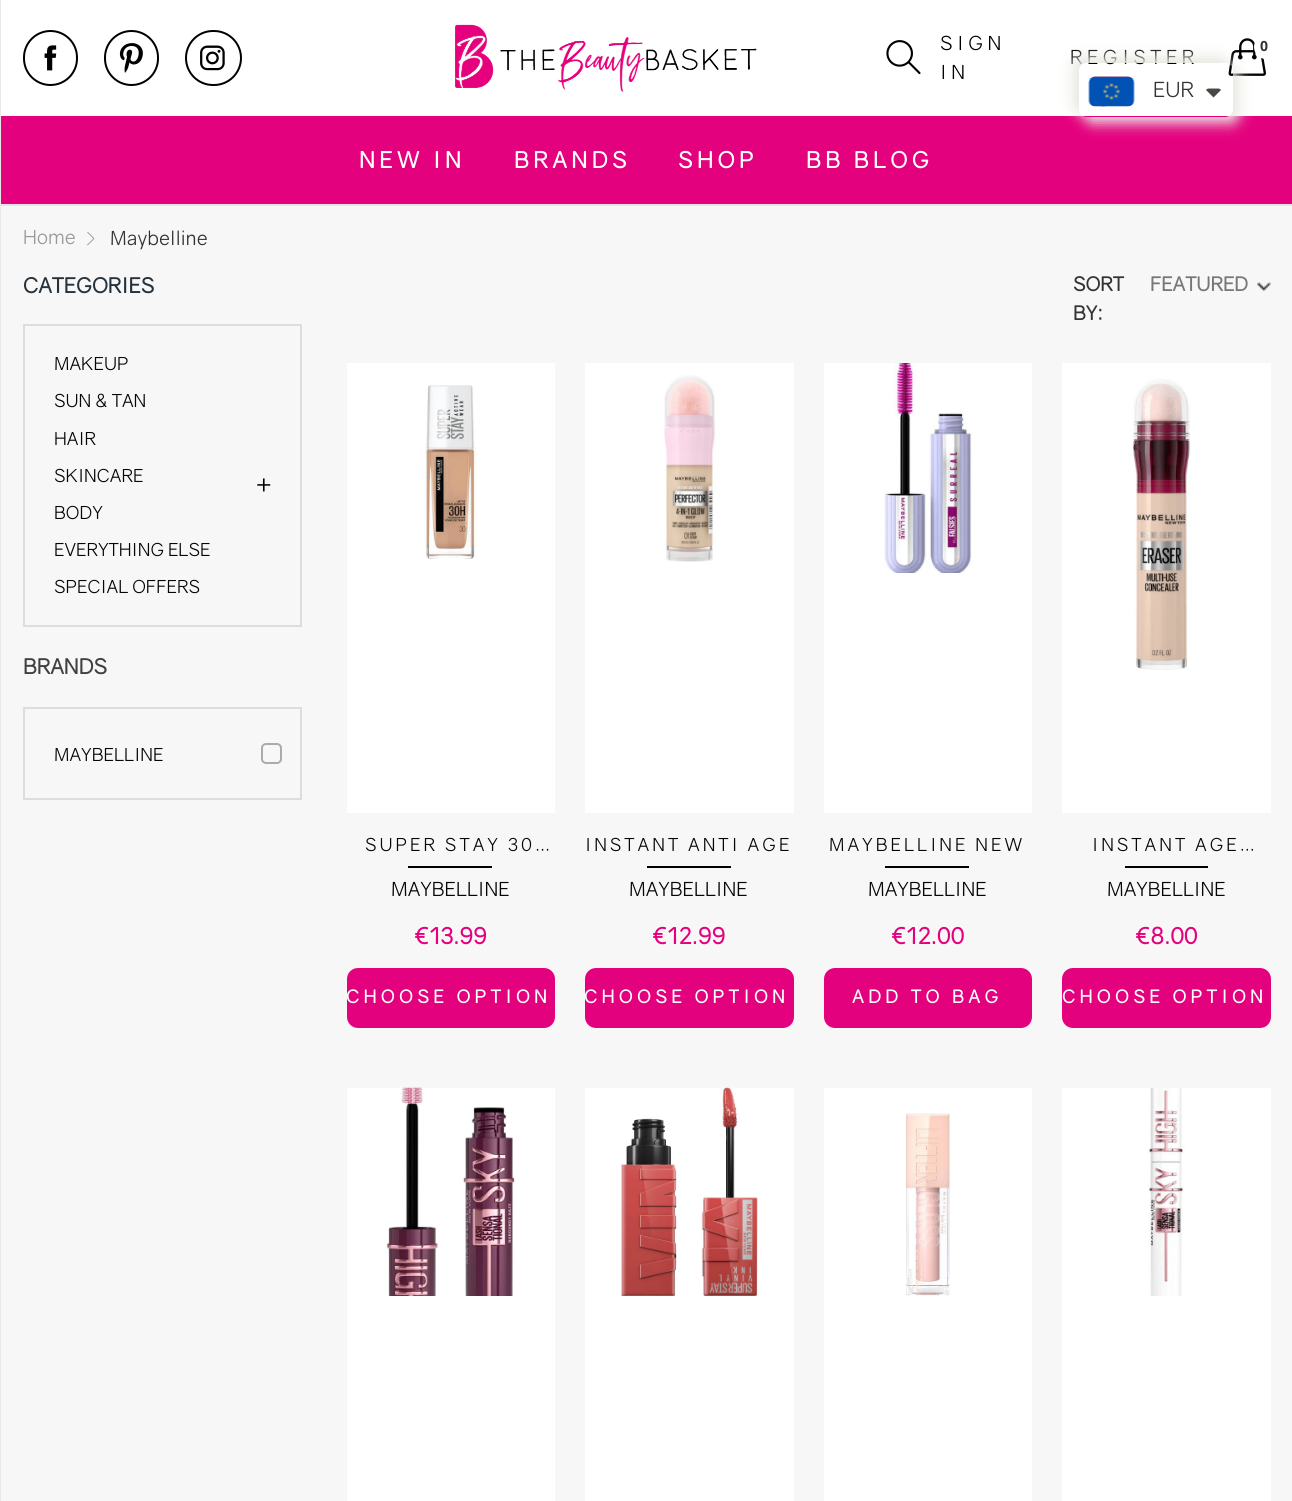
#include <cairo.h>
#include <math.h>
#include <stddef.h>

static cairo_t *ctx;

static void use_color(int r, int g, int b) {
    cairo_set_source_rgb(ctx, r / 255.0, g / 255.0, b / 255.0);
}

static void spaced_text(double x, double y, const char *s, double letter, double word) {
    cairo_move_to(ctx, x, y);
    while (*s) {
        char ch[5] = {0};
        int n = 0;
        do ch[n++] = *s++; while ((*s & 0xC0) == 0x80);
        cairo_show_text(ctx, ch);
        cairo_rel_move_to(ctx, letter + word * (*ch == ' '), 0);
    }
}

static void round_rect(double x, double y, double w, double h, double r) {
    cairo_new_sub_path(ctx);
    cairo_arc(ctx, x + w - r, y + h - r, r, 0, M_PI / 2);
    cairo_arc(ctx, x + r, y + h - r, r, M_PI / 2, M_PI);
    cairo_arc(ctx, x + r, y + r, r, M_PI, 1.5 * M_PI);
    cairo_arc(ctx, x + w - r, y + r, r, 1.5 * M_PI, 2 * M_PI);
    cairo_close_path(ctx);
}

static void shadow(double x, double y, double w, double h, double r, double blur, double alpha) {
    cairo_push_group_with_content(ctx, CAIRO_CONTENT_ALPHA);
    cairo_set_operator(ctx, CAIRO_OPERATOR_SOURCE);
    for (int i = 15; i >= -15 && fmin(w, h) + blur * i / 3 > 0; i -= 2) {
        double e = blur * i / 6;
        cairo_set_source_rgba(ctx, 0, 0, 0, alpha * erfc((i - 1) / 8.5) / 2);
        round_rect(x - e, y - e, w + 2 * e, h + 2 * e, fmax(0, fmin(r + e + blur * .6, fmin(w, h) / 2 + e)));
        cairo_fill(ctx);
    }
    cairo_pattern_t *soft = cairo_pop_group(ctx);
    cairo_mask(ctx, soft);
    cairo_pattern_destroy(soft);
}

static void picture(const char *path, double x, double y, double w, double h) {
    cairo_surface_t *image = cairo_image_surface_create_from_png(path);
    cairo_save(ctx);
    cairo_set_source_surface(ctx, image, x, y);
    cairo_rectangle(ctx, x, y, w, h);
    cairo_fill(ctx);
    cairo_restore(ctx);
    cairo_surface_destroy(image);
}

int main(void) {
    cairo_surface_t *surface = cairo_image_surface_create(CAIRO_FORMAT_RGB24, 1292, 1501);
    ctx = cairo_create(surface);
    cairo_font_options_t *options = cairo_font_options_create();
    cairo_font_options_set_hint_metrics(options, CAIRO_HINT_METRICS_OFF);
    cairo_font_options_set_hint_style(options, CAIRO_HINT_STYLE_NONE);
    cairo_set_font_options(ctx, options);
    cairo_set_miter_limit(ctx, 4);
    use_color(247, 247, 247);
    cairo_paint(ctx);
    use_color(229, 229, 229);
    cairo_rectangle(ctx, 0, 204, 1292, 2);
    cairo_fill(ctx);
    use_color(233, 233, 233);
    cairo_rectangle(ctx, 0, 0, 1, 1501);
    cairo_fill(ctx);
    use_color(255, 255, 255);
    cairo_rectangle(ctx, 1, 0, 1291, 116);
    cairo_fill(ctx);
    round_rect(24, 31, 53, 54, 26.5);
    use_color(0, 0, 0);
    cairo_stroke(ctx);
    picture("img1.png", 44, 45, 13, 26);
    round_rect(105, 31, 53, 54, 26.5);
    cairo_stroke(ctx);
    picture("img2.png", 119, 43, 24, 30);
    round_rect(186, 31, 55, 54, 27);
    cairo_stroke(ctx);
    picture("img3.png", 200, 45, 25, 26);
    picture("img4.png", 455, 24, 302, 68);
    picture("img5.png", 886, 40, 35, 35);
    cairo_select_font_face(ctx, "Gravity", CAIRO_FONT_SLANT_NORMAL, CAIRO_FONT_WEIGHT_NORMAL);
    cairo_set_font_size(ctx, 19.5);
    spaced_text(940, 50, "SIGN", 4.5, 0);
    spaced_text(940, 79, "IN", 4.5, 0);
    picture("img6.png", 1228, 38, 38, 38);
    use_color(255, 255, 255);
    cairo_arc(ctx, 1266, 47, 12, 0, 2 * M_PI);
    cairo_fill(ctx);
    cairo_select_font_face(ctx, "Open Sans", CAIRO_FONT_SLANT_NORMAL, CAIRO_FONT_WEIGHT_BOLD);
    cairo_set_font_size(ctx, 14);
    use_color(51, 51, 51);
    spaced_text(1260, 51, "0", 4.5, 0);
    cairo_select_font_face(ctx, "Gravity", CAIRO_FONT_SLANT_NORMAL, CAIRO_FONT_WEIGHT_NORMAL);
    cairo_set_font_size(ctx, 19.5);
    use_color(0, 0, 0);
    spaced_text(1070, 64, "REGISTER", 4.5, 0);
    use_color(228, 1, 125);
    cairo_rectangle(ctx, 1, 116, 1291, 88);
    cairo_fill(ctx);
    cairo_select_font_face(ctx, "Gravity", CAIRO_FONT_SLANT_NORMAL, CAIRO_FONT_WEIGHT_BOLD);
    cairo_set_font_size(ctx, 22.5);
    use_color(255, 255, 255);
    spaced_text(359, 168, "NEW IN", 4.5, 0);
    spaced_text(514, 168, "BRANDS", 4.5, 0);
    spaced_text(678, 168, "SHOP", 4.5, 0);
    spaced_text(806, 168, "BB BLOG", 4.5, 0);
    cairo_select_font_face(ctx, "Gravity", CAIRO_FONT_SLANT_NORMAL, CAIRO_FONT_WEIGHT_NORMAL);
    cairo_set_font_size(ctx, 19.5);
    use_color(153, 153, 153);
    cairo_move_to(ctx, 23, 244);
    cairo_show_text(ctx, "Home");
    picture("img7.png", 87, 231, 8, 15);
    use_color(51, 51, 51);
    cairo_move_to(ctx, 110, 245);
    cairo_show_text(ctx, "Maybelline");
    cairo_select_font_face(ctx, "Gravity", CAIRO_FONT_SLANT_NORMAL, CAIRO_FONT_WEIGHT_BOLD);
    cairo_set_font_size(ctx, 21);
    use_color(40, 50, 60);
    cairo_move_to(ctx, 23, 293);
    cairo_show_text(ctx, "CATEGORIES");
    cairo_rectangle(ctx, 24, 325, 277, 301);
    use_color(221, 221, 221);
    cairo_stroke(ctx);
    cairo_select_font_face(ctx, "Gravity", CAIRO_FONT_SLANT_NORMAL, CAIRO_FONT_WEIGHT_NORMAL);
    cairo_set_font_size(ctx, 18);
    use_color(6, 6, 6);
    cairo_move_to(ctx, 54, 370);
    cairo_show_text(ctx, "MAKEUP");
    cairo_move_to(ctx, 54, 407);
    cairo_show_text(ctx, "SUN & TAN");
    cairo_move_to(ctx, 54, 445);
    cairo_show_text(ctx, "HAIR");
    cairo_move_to(ctx, 54, 482);
    cairo_show_text(ctx, "SKINCARE");
    cairo_set_font_size(ctx, 27);
    use_color(0, 0, 0);
    cairo_move_to(ctx, 254, 492);
    cairo_show_text(ctx, "+");
    cairo_set_font_size(ctx, 18);
    use_color(6, 6, 6);
    cairo_move_to(ctx, 54, 519);
    cairo_show_text(ctx, "BODY");
    cairo_move_to(ctx, 54, 556);
    cairo_show_text(ctx, "EVERYTHING ELSE");
    cairo_move_to(ctx, 54, 593);
    cairo_show_text(ctx, "SPECIAL OFFERS");
    cairo_select_font_face(ctx, "Gravity", CAIRO_FONT_SLANT_NORMAL, CAIRO_FONT_WEIGHT_BOLD);
    cairo_set_font_size(ctx, 21);
    use_color(64, 64, 64);
    cairo_move_to(ctx, 23, 674);
    cairo_show_text(ctx, "BRANDS");
    cairo_rectangle(ctx, 24, 708, 277, 91);
    use_color(221, 221, 221);
    cairo_stroke(ctx);
    cairo_select_font_face(ctx, "Gravity", CAIRO_FONT_SLANT_NORMAL, CAIRO_FONT_WEIGHT_NORMAL);
    cairo_set_font_size(ctx, 18);
    use_color(6, 6, 6);
    cairo_move_to(ctx, 54, 761);
    cairo_show_text(ctx, "MAYBELLINE");
    round_rect(262, 744, 19, 19, 4);
    use_color(171, 171, 171);
    cairo_stroke(ctx);
    cairo_select_font_face(ctx, "Gravity", CAIRO_FONT_SLANT_NORMAL, CAIRO_FONT_WEIGHT_BOLD);
    cairo_set_font_size(ctx, 19.5);
    use_color(51, 51, 51);
    cairo_move_to(ctx, 1073, 291);
    cairo_show_text(ctx, "SORT");
    cairo_move_to(ctx, 1073, 320);
    cairo_show_text(ctx, "BY:");
    picture("img8.png", 1257, 282, 14, 9);
    use_color(119, 119, 119);
    cairo_move_to(ctx, 1150, 291);
    cairo_show_text(ctx, "FEATURED");
    use_color(255, 255, 255);
    cairo_rectangle(ctx, 347, 363, 208, 450);
    cairo_fill(ctx);
    picture("img9.png", 425, 385, 52, 174);
    cairo_select_font_face(ctx, "Gravity", CAIRO_FONT_SLANT_NORMAL, CAIRO_FONT_WEIGHT_NORMAL);
    cairo_set_font_size(ctx, 18);
    use_color(6, 6, 6);
    spaced_text(365, 851, "SUPER STAY 30…", 3, 0);
    use_color(0, 0, 0);
    cairo_rectangle(ctx, 408, 866, 84, 2);
    cairo_fill(ctx);
    cairo_set_font_size(ctx, 19.5);
    use_color(6, 6, 6);
    cairo_move_to(ctx, 391, 896);
    cairo_show_text(ctx, "MAYBELLINE");
    cairo_select_font_face(ctx, "Gravity", CAIRO_FONT_SLANT_NORMAL, CAIRO_FONT_WEIGHT_BOLD);
    cairo_set_font_size(ctx, 22.5);
    use_color(228, 1, 125);
    cairo_move_to(ctx, 414, 944);
    cairo_show_text(ctx, "€13.99");
    round_rect(347, 968, 208, 60, 11);
    cairo_fill(ctx);
    cairo_set_font_size(ctx, 18);
    use_color(255, 255, 255);
    spaced_text(346, 1003, "CHOOSE OPTION", 4.5, 0);
    cairo_rectangle(ctx, 585, 363, 209, 450);
    cairo_fill(ctx);
    picture("img10.png", 664, 375, 52, 187);
    cairo_select_font_face(ctx, "Gravity", CAIRO_FONT_SLANT_NORMAL, CAIRO_FONT_WEIGHT_NORMAL);
    use_color(6, 6, 6);
    spaced_text(585, 851, "INSTANT ANTI AGE", 3, 0);
    use_color(0, 0, 0);
    cairo_rectangle(ctx, 647, 866, 84, 2);
    cairo_fill(ctx);
    cairo_set_font_size(ctx, 19.5);
    use_color(6, 6, 6);
    cairo_move_to(ctx, 629, 896);
    cairo_show_text(ctx, "MAYBELLINE");
    cairo_select_font_face(ctx, "Gravity", CAIRO_FONT_SLANT_NORMAL, CAIRO_FONT_WEIGHT_BOLD);
    cairo_set_font_size(ctx, 22.5);
    use_color(228, 1, 125);
    cairo_move_to(ctx, 652, 944);
    cairo_show_text(ctx, "€12.99");
    round_rect(585, 968, 209, 60, 11);
    cairo_fill(ctx);
    cairo_set_font_size(ctx, 18);
    use_color(255, 255, 255);
    spaced_text(584, 1003, "CHOOSE OPTION", 4.5, 0);
    cairo_rectangle(ctx, 824, 363, 208, 450);
    cairo_fill(ctx);
    picture("img11.png", 882, 363, 91, 210);
    cairo_select_font_face(ctx, "Gravity", CAIRO_FONT_SLANT_NORMAL, CAIRO_FONT_WEIGHT_NORMAL);
    use_color(6, 6, 6);
    spaced_text(829, 851, "MAYBELLINE NEW", 3, 0);
    use_color(0, 0, 0);
    cairo_rectangle(ctx, 885, 866, 84, 2);
    cairo_fill(ctx);
    cairo_set_font_size(ctx, 19.5);
    use_color(6, 6, 6);
    cairo_move_to(ctx, 868, 896);
    cairo_show_text(ctx, "MAYBELLINE");
    cairo_select_font_face(ctx, "Gravity", CAIRO_FONT_SLANT_NORMAL, CAIRO_FONT_WEIGHT_BOLD);
    cairo_set_font_size(ctx, 22.5);
    use_color(228, 1, 125);
    cairo_move_to(ctx, 891, 944);
    cairo_show_text(ctx, "€12.00");
    round_rect(824, 968, 208, 60, 11);
    cairo_fill(ctx);
    cairo_set_font_size(ctx, 18);
    use_color(255, 255, 255);
    spaced_text(852, 1003, "ADD TO BAG", 4.5, 0);
    cairo_rectangle(ctx, 1062, 363, 209, 450);
    cairo_fill(ctx);
    picture("img12.png", 1132, 378, 59, 292);
    cairo_select_font_face(ctx, "Gravity", CAIRO_FONT_SLANT_NORMAL, CAIRO_FONT_WEIGHT_NORMAL);
    use_color(6, 6, 6);
    spaced_text(1092, 851, "INSTANT AGE…", 3, 0);
    use_color(0, 0, 0);
    cairo_rectangle(ctx, 1125, 866, 83, 2);
    cairo_fill(ctx);
    cairo_set_font_size(ctx, 19.5);
    use_color(6, 6, 6);
    cairo_move_to(ctx, 1107, 896);
    cairo_show_text(ctx, "MAYBELLINE");
    cairo_select_font_face(ctx, "Gravity", CAIRO_FONT_SLANT_NORMAL, CAIRO_FONT_WEIGHT_BOLD);
    cairo_set_font_size(ctx, 22.5);
    use_color(228, 1, 125);
    cairo_move_to(ctx, 1135, 944);
    cairo_show_text(ctx, "€8.00");
    round_rect(1062, 968, 209, 60, 11);
    cairo_fill(ctx);
    cairo_set_font_size(ctx, 18);
    use_color(255, 255, 255);
    spaced_text(1062, 1003, "CHOOSE OPTION", 4.5, 0);
    cairo_rectangle(ctx, 347, 1088, 208, 413);
    cairo_fill(ctx);
    picture("img13.png", 386, 1087, 131, 209);
    cairo_rectangle(ctx, 585, 1088, 209, 413);
    cairo_fill(ctx);
    picture("img14.png", 620, 1087, 138, 209);
    cairo_rectangle(ctx, 824, 1088, 208, 413);
    cairo_fill(ctx);
    picture("img15.png", 905, 1113, 45, 183);
    cairo_rectangle(ctx, 1062, 1088, 209, 413);
    cairo_fill(ctx);
    picture("img16.png", 1148, 1087, 37, 209);
    cairo_save(ctx);
    cairo_set_fill_rule(ctx, CAIRO_FILL_RULE_EVEN_ODD);
    cairo_new_path(ctx);
    cairo_move_to(ctx, 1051, 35);
    cairo_line_to(ctx, 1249, 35);
    cairo_line_to(ctx, 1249, 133);
    cairo_line_to(ctx, 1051, 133);
    cairo_close_path(ctx);
    cairo_move_to(ctx, 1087, 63);
    cairo_line_to(ctx, 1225, 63);
    cairo_curve_to(ctx, 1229.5, 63, 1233, 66.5, 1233, 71);
    cairo_line_to(ctx, 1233, 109);
    cairo_curve_to(ctx, 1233, 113.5, 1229.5, 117, 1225, 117);
    cairo_line_to(ctx, 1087, 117);
    cairo_curve_to(ctx, 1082.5, 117, 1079, 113.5, 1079, 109);
    cairo_line_to(ctx, 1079, 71);
    cairo_curve_to(ctx, 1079, 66.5, 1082.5, 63, 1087, 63);
    cairo_close_path(ctx);
    cairo_clip(ctx);
    use_color(232, 232, 226);
    shadow(1073, 57, 154, 54, 8, 7, 1);
    cairo_restore(ctx);
    cairo_save(ctx);
    cairo_set_fill_rule(ctx, CAIRO_FILL_RULE_EVEN_ODD);
    cairo_new_path(ctx);
    cairo_move_to(ctx, 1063, 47);
    cairo_line_to(ctx, 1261, 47);
    cairo_line_to(ctx, 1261, 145);
    cairo_line_to(ctx, 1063, 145);
    cairo_close_path(ctx);
    cairo_move_to(ctx, 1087, 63);
    cairo_line_to(ctx, 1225, 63);
    cairo_curve_to(ctx, 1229.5, 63, 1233, 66.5, 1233, 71);
    cairo_line_to(ctx, 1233, 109);
    cairo_curve_to(ctx, 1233, 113.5, 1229.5, 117, 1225, 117);
    cairo_line_to(ctx, 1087, 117);
    cairo_curve_to(ctx, 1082.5, 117, 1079, 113.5, 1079, 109);
    cairo_line_to(ctx, 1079, 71);
    cairo_curve_to(ctx, 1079, 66.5, 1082.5, 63, 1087, 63);
    cairo_close_path(ctx);
    cairo_clip(ctx);
    use_color(232, 232, 226);
    shadow(1085, 69, 154, 54, 8, 7, 1);
    cairo_restore(ctx);
    picture("img17.png", 1088, 76, 47, 31);
    cairo_select_font_face(ctx, "Gravity", CAIRO_FONT_SLANT_NORMAL, CAIRO_FONT_WEIGHT_NORMAL);
    cairo_set_font_size(ctx, 21);
    use_color(51, 51, 51);
    cairo_move_to(ctx, 1153, 97);
    cairo_show_text(ctx, "EUR");
    use_color(71, 73, 66);
    cairo_new_path(ctx);
    cairo_move_to(ctx, 1209, 88.5);
    cairo_curve_to(ctx, 1208, 88.5, 1206.5, 89, 1206, 90);
    cairo_line_to(ctx, 1213.5, 97.5);
    cairo_line_to(ctx, 1221, 90);
    cairo_curve_to(ctx, 1220.5, 89, 1219, 88.5, 1218, 88.5);
    cairo_close_path(ctx);
    cairo_fill(ctx);
    cairo_surface_write_to_png(surface, "result.png");
    cairo_font_options_destroy(options);
    cairo_destroy(ctx);
    cairo_surface_destroy(surface);
    return 0;
}
